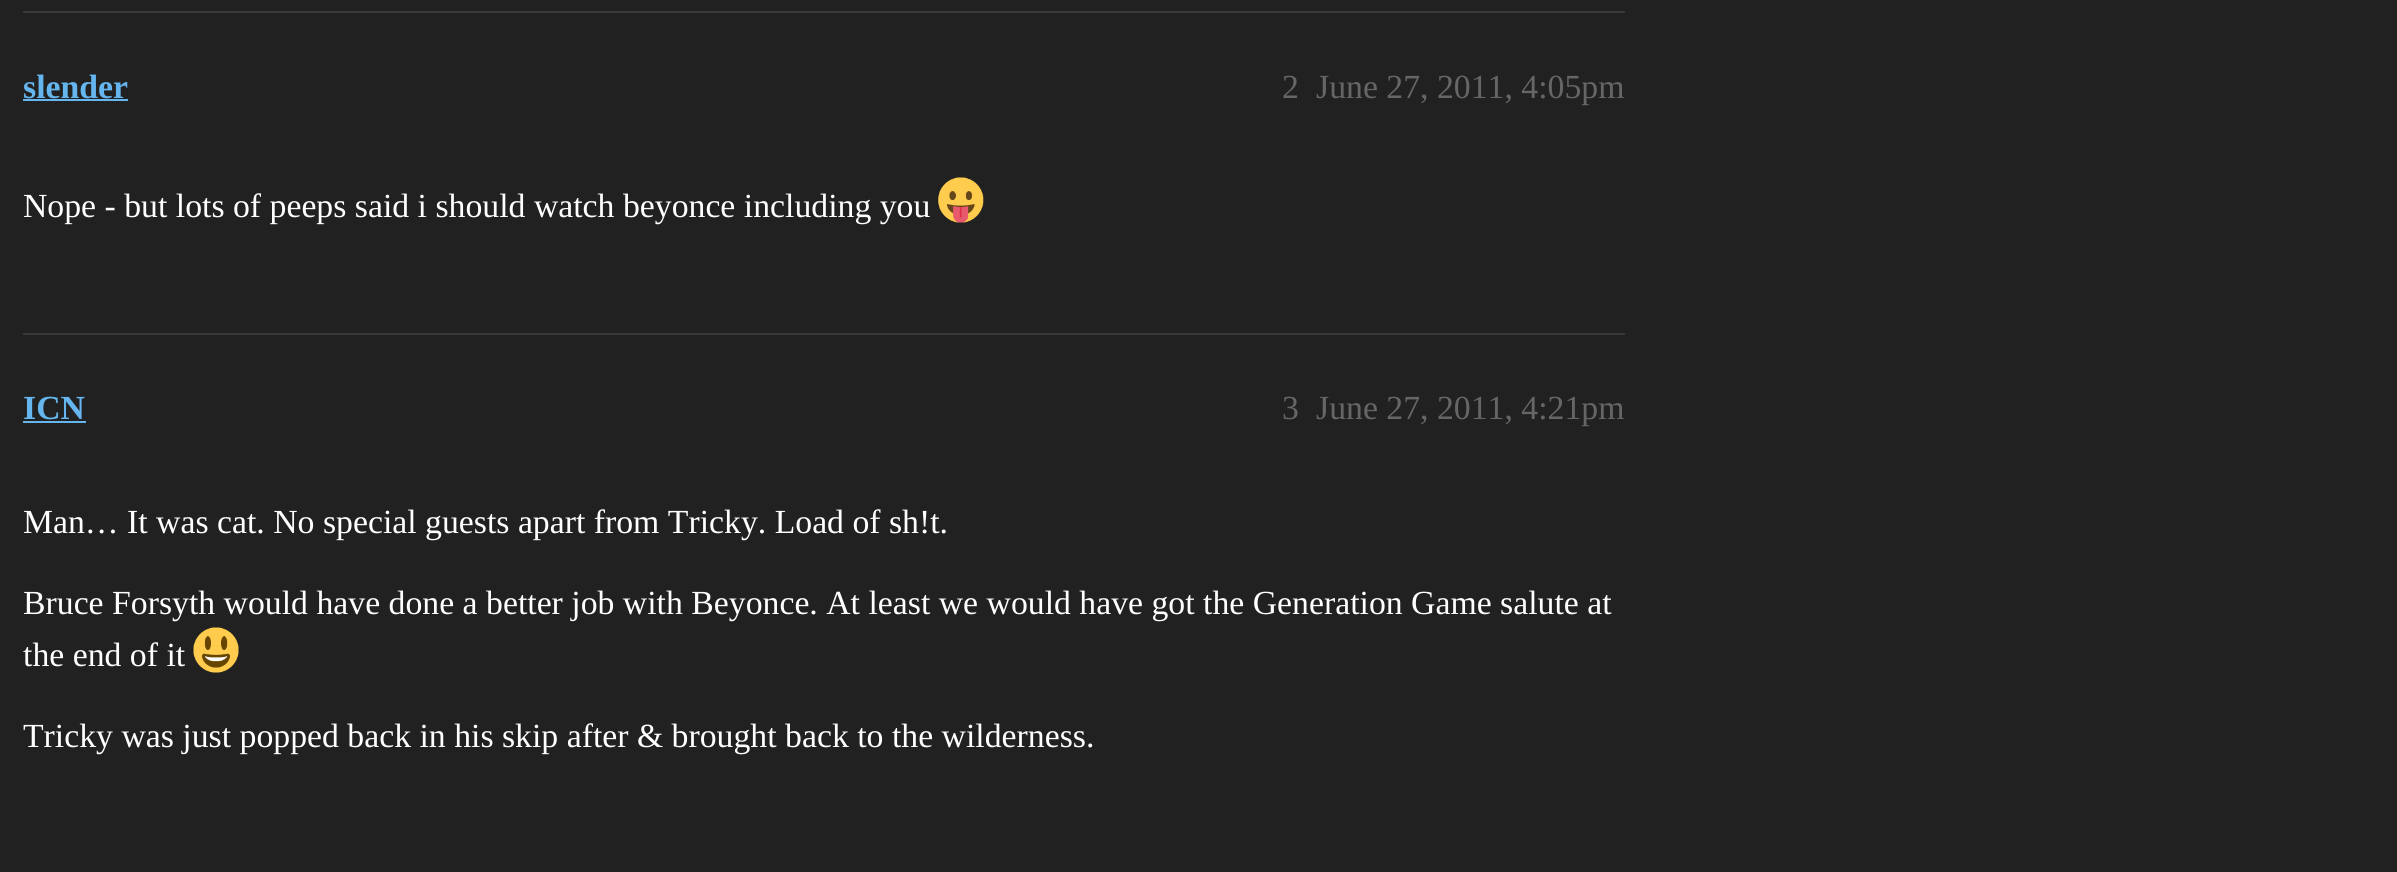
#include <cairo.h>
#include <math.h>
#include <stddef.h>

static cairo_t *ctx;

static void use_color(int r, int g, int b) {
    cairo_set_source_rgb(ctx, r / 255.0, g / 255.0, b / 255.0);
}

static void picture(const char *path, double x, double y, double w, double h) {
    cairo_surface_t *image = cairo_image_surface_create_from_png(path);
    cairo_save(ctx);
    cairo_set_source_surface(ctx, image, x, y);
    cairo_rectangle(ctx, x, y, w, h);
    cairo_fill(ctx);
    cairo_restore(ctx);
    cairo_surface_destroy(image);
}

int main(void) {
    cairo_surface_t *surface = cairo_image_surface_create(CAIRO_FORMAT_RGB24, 2397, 872);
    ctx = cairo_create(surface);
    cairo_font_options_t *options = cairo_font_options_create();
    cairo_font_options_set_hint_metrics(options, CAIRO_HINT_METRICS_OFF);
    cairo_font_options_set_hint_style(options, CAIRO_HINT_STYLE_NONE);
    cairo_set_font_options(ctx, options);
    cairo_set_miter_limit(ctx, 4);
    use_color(33, 33, 33);
    cairo_paint(ctx);
    use_color(56, 56, 56);
    cairo_rectangle(ctx, 23, 11, 1602, 2);
    cairo_fill(ctx);
    cairo_select_font_face(ctx, "Liberation Serif", CAIRO_FONT_SLANT_NORMAL, CAIRO_FONT_WEIGHT_BOLD);
    cairo_set_font_size(ctx, 33.75);
    use_color(101, 182, 238);
    cairo_move_to(ctx, 23, 98);
    cairo_show_text(ctx, "slender");
    cairo_rectangle(ctx, 23, 99, 105, 2);
    cairo_fill(ctx);
    cairo_select_font_face(ctx, "Liberation Serif", CAIRO_FONT_SLANT_NORMAL, CAIRO_FONT_WEIGHT_NORMAL);
    use_color(102, 102, 102);
    cairo_move_to(ctx, 1282, 98);
    cairo_show_text(ctx, "2");
    cairo_move_to(ctx, 1316, 98);
    cairo_show_text(ctx, "June 27, 2011, 4:05pm");
    use_color(255, 255, 255);
    cairo_move_to(ctx, 23, 217);
    cairo_show_text(ctx, "Nope - but lots of peeps said i should watch beyonce including you");
    picture("img1.png", 938, 177, 46, 46);
    use_color(56, 56, 56);
    cairo_rectangle(ctx, 23, 333, 1602, 2);
    cairo_fill(ctx);
    cairo_select_font_face(ctx, "Liberation Serif", CAIRO_FONT_SLANT_NORMAL, CAIRO_FONT_WEIGHT_BOLD);
    use_color(101, 182, 238);
    cairo_move_to(ctx, 23, 419);
    cairo_show_text(ctx, "ICN");
    cairo_rectangle(ctx, 23, 421, 63, 2);
    cairo_fill(ctx);
    cairo_select_font_face(ctx, "Liberation Serif", CAIRO_FONT_SLANT_NORMAL, CAIRO_FONT_WEIGHT_NORMAL);
    use_color(102, 102, 102);
    cairo_move_to(ctx, 1282, 419);
    cairo_show_text(ctx, "3");
    cairo_move_to(ctx, 1316, 419);
    cairo_show_text(ctx, "June 27, 2011, 4:21pm");
    use_color(255, 255, 255);
    cairo_move_to(ctx, 23, 533);
    cairo_show_text(ctx, "Man… It was cat. No special guests apart from Tricky. Load of sh!t.");
    cairo_move_to(ctx, 23, 614);
    cairo_show_text(ctx, "Bruce Forsyth would have done a better job with Beyonce. At least we would have got the Generation Game salute at");
    cairo_move_to(ctx, 23, 666);
    cairo_show_text(ctx, "the end of it");
    picture("img2.png", 193, 627, 46, 46);
    cairo_move_to(ctx, 23, 747);
    cairo_show_text(ctx, "Tricky was just popped back in his skip after & brought back to the wilderness.");
    cairo_surface_write_to_png(surface, "result.png");
    cairo_font_options_destroy(options);
    cairo_destroy(ctx);
    cairo_surface_destroy(surface);
    return 0;
}
